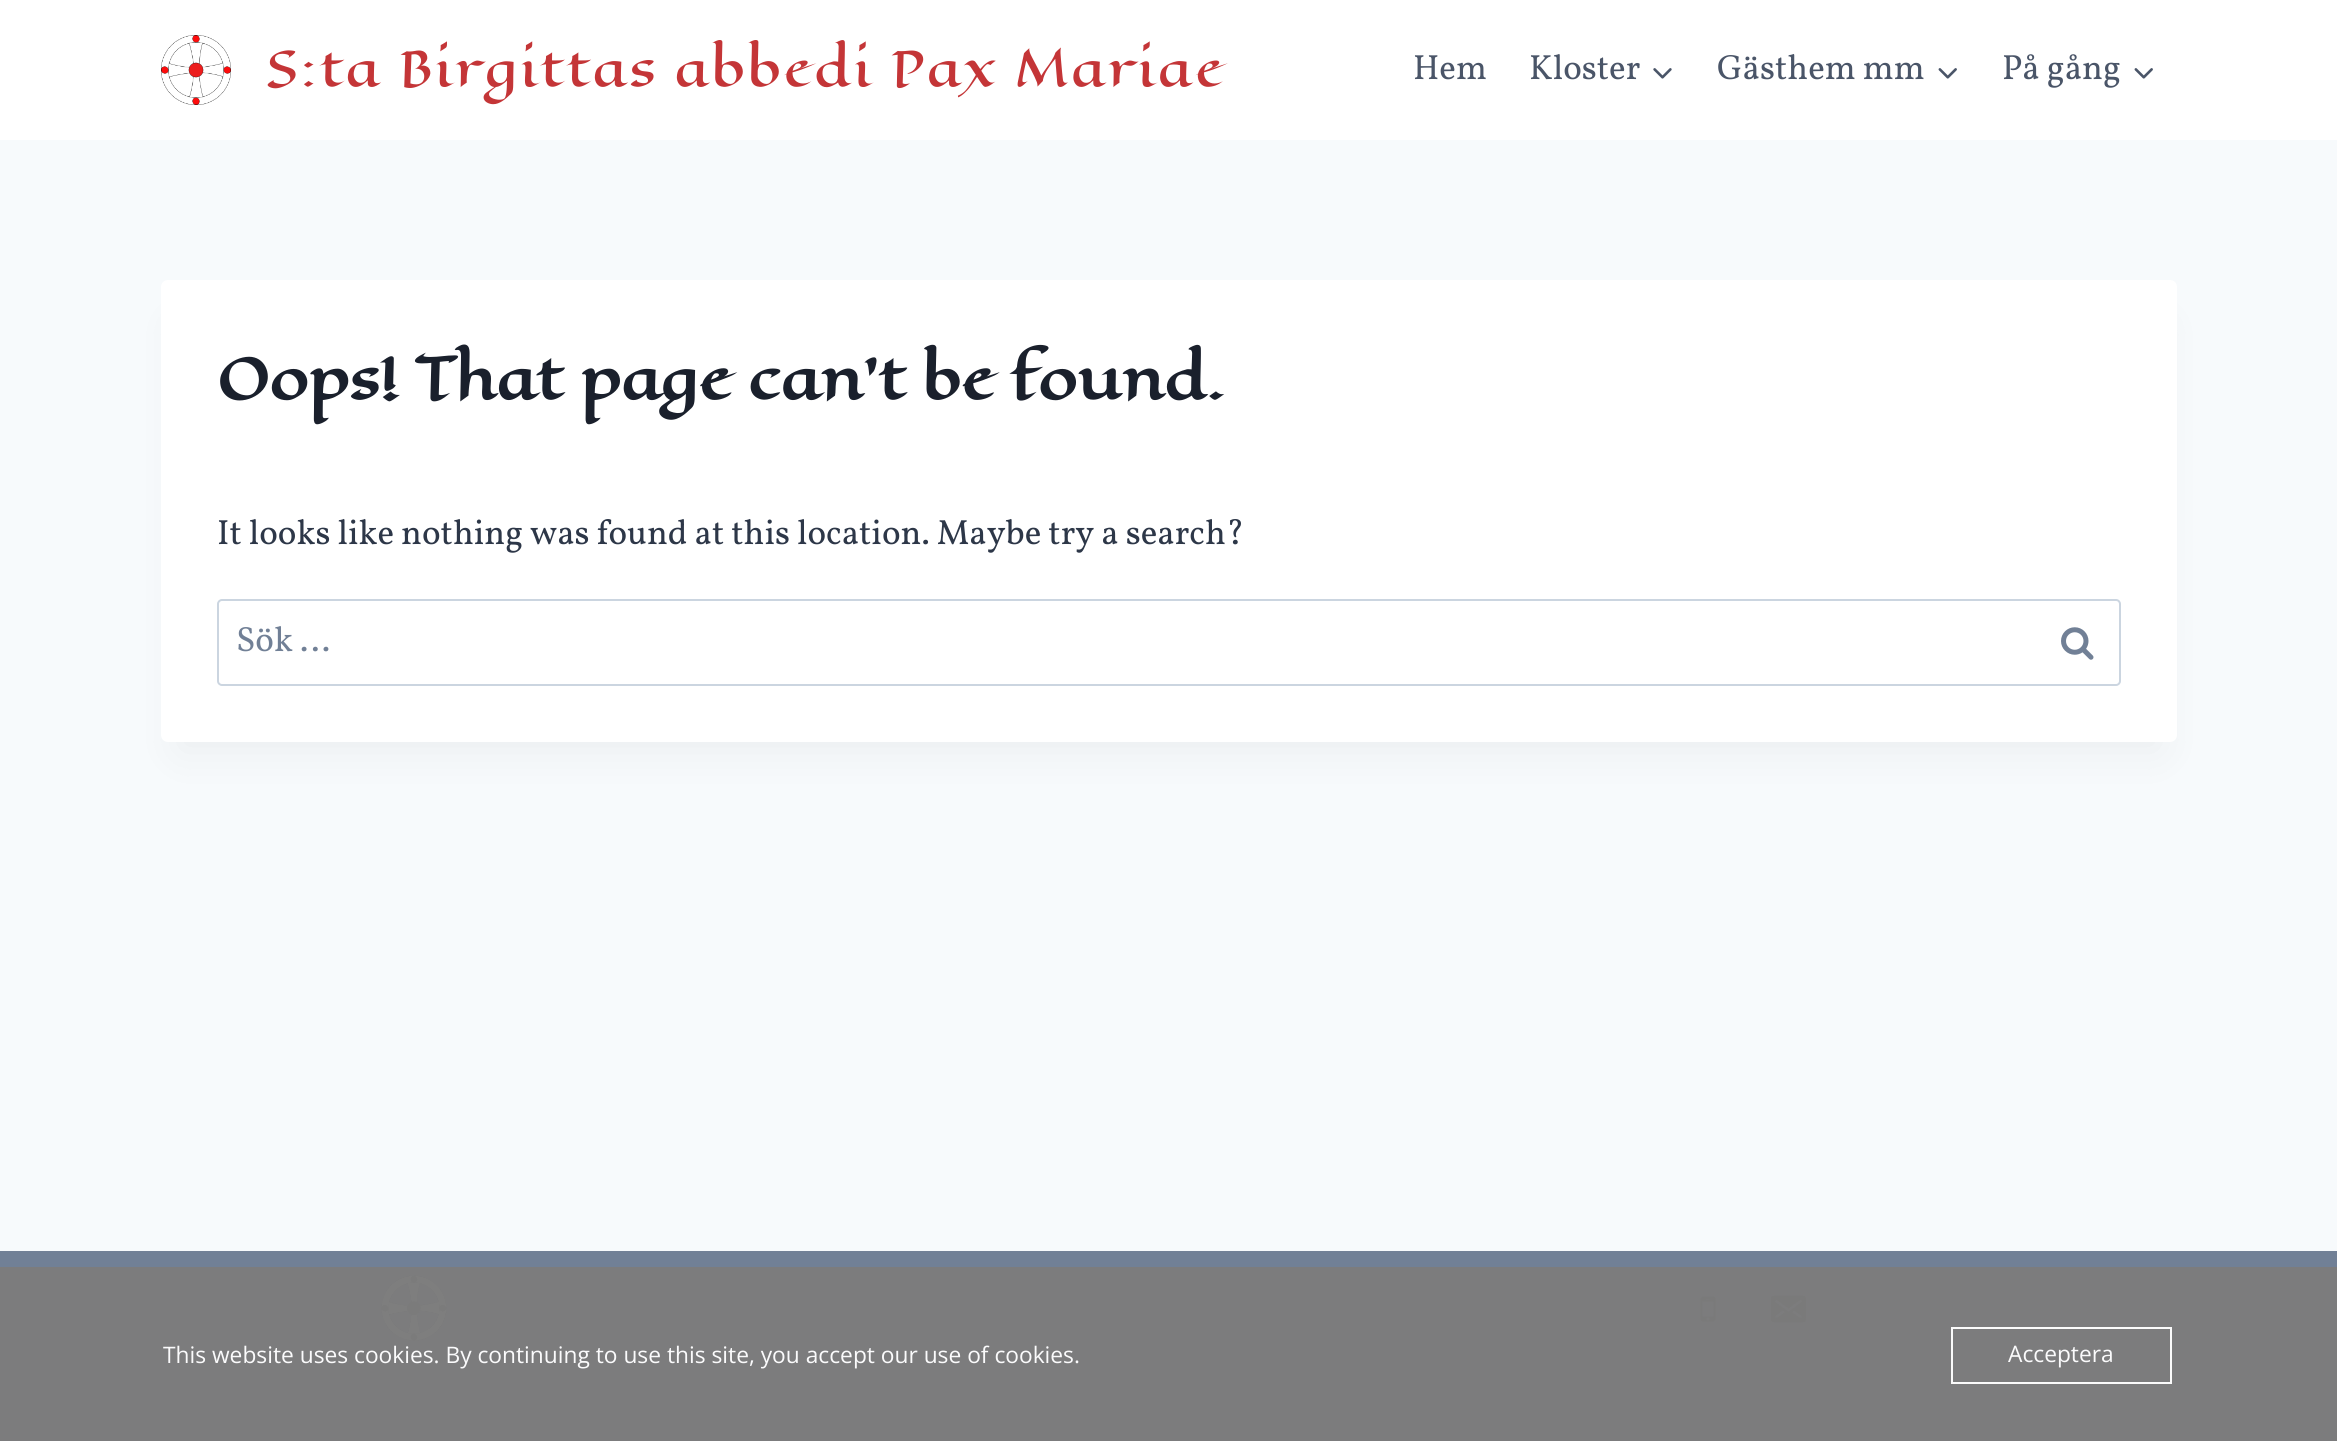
#include <cairo.h>
#include <math.h>
#include <stddef.h>

static cairo_t *ctx;

static void use_color(int r, int g, int b) {
    cairo_set_source_rgb(ctx, r / 255.0, g / 255.0, b / 255.0);
}

static void spaced_text(double x, double y, const char *s, double letter, double word) {
    cairo_move_to(ctx, x, y);
    while (*s) {
        char ch[5] = {0};
        int n = 0;
        do ch[n++] = *s++; while ((*s & 0xC0) == 0x80);
        cairo_show_text(ctx, ch);
        cairo_rel_move_to(ctx, letter + word * (*ch == ' '), 0);
    }
}

static void round_rect(double x, double y, double w, double h, double r) {
    cairo_new_sub_path(ctx);
    cairo_arc(ctx, x + w - r, y + h - r, r, 0, M_PI / 2);
    cairo_arc(ctx, x + r, y + h - r, r, M_PI / 2, M_PI);
    cairo_arc(ctx, x + r, y + r, r, M_PI, 1.5 * M_PI);
    cairo_arc(ctx, x + w - r, y + r, r, 1.5 * M_PI, 2 * M_PI);
    cairo_close_path(ctx);
}

static void shadow(double x, double y, double w, double h, double r, double blur, double alpha) {
    cairo_push_group_with_content(ctx, CAIRO_CONTENT_ALPHA);
    cairo_set_operator(ctx, CAIRO_OPERATOR_SOURCE);
    for (int i = 15; i >= -15 && fmin(w, h) + blur * i / 3 > 0; i -= 2) {
        double e = blur * i / 6;
        cairo_set_source_rgba(ctx, 0, 0, 0, alpha * erfc((i - 1) / 8.5) / 2);
        round_rect(x - e, y - e, w + 2 * e, h + 2 * e, fmax(0, fmin(r + e + blur * .6, fmin(w, h) / 2 + e)));
        cairo_fill(ctx);
    }
    cairo_pattern_t *soft = cairo_pop_group(ctx);
    cairo_mask(ctx, soft);
    cairo_pattern_destroy(soft);
}

static void picture(const char *path, double x, double y, double w, double h) {
    cairo_surface_t *image = cairo_image_surface_create_from_png(path);
    cairo_save(ctx);
    cairo_set_source_surface(ctx, image, x, y);
    cairo_rectangle(ctx, x, y, w, h);
    cairo_fill(ctx);
    cairo_restore(ctx);
    cairo_surface_destroy(image);
}

int main(void) {
    cairo_surface_t *surface = cairo_image_surface_create(CAIRO_FORMAT_RGB24, 2337, 1441);
    ctx = cairo_create(surface);
    cairo_font_options_t *options = cairo_font_options_create();
    cairo_font_options_set_hint_metrics(options, CAIRO_HINT_METRICS_OFF);
    cairo_font_options_set_hint_style(options, CAIRO_HINT_STYLE_NONE);
    cairo_set_font_options(ctx, options);
    cairo_set_miter_limit(ctx, 4);
    use_color(247, 250, 252);
    cairo_paint(ctx);
    use_color(255, 255, 255);
    cairo_rectangle(ctx, 0, 0, 2337, 140);
    cairo_fill(ctx);
    picture("img1.png", 161, 35, 70, 70);
    cairo_select_font_face(ctx, "Eagle Lake", CAIRO_FONT_SLANT_NORMAL, CAIRO_FONT_WEIGHT_NORMAL);
    cairo_set_font_size(ctx, 49);
    use_color(196, 53, 55);
    spaced_text(266, 86, "S:ta Birgittas abbedi Pax Mariae", 2.1, 0);
    cairo_select_font_face(ctx, "Vollkorn", CAIRO_FONT_SLANT_NORMAL, CAIRO_FONT_WEIGHT_NORMAL);
    cairo_set_font_size(ctx, 35);
    use_color(74, 85, 104);
    cairo_move_to(ctx, 1413, 79);
    cairo_show_text(ctx, "Hem");
    cairo_move_to(ctx, 1529, 79);
    cairo_show_text(ctx, "Kloster");
    picture("img2.png", 1653, 68, 19, 11);
    cairo_move_to(ctx, 1717, 79);
    cairo_show_text(ctx, "Gästhem mm");
    picture("img3.png", 1938, 68, 19, 11);
    cairo_move_to(ctx, 2002, 79);
    cairo_show_text(ctx, "På gång");
    picture("img3.png", 2134, 68, 19, 11);
    use_color(0, 0, 0);
    shadow(179, 324, 1981, 427, 0, 22, 0.05);
    use_color(255, 255, 255);
    round_rect(161, 280, 2016, 462, 7);
    cairo_fill(ctx);
    cairo_select_font_face(ctx, "Eagle Lake", CAIRO_FONT_SLANT_NORMAL, CAIRO_FONT_WEIGHT_BOLD);
    cairo_set_font_size(ctx, 56);
    use_color(26, 32, 44);
    cairo_move_to(ctx, 217, 399);
    cairo_show_text(ctx, "Oops! That page can’t be found.");
    cairo_select_font_face(ctx, "Vollkorn", CAIRO_FONT_SLANT_NORMAL, CAIRO_FONT_WEIGHT_NORMAL);
    cairo_set_font_size(ctx, 35);
    use_color(45, 55, 72);
    cairo_move_to(ctx, 217, 544);
    cairo_show_text(ctx, "It looks like nothing was found at this location. Maybe try a search?");
    round_rect(218, 600, 1902, 85, 4);
    use_color(203, 213, 224);
    cairo_stroke(ctx);
    use_color(113, 128, 150);
    cairo_move_to(ctx, 236, 651);
    cairo_show_text(ctx, "Sök …");
    picture("img4.png", 2061, 627, 33, 33);
    cairo_rectangle(ctx, 0, 1251, 2337, 16);
    cairo_fill(ctx);
    use_color(124, 124, 125);
    cairo_rectangle(ctx, 0, 1267, 2337, 174);
    cairo_fill(ctx);
    picture("img5.png", 381, 1275, 66, 66);
    picture("img6.png", 1700, 1296, 16, 26);
    picture("img7.png", 1771, 1295, 35, 28);
    cairo_select_font_face(ctx, "Open Sans", CAIRO_FONT_SLANT_NORMAL, CAIRO_FONT_WEIGHT_NORMAL);
    cairo_set_font_size(ctx, 22.75);
    use_color(251, 251, 252);
    cairo_move_to(ctx, 163, 1363);
    cairo_show_text(ctx, "This website uses cookies. By continuing to use this site, you accept our use of cookies.");
    cairo_rectangle(ctx, 1952, 1328, 219, 55);
    use_color(251, 251, 251);
    cairo_stroke(ctx);
    use_color(251, 251, 252);
    cairo_move_to(ctx, 2008, 1362);
    cairo_show_text(ctx, "Acceptera");
    cairo_surface_write_to_png(surface, "result.png");
    cairo_font_options_destroy(options);
    cairo_destroy(ctx);
    cairo_surface_destroy(surface);
    return 0;
}
